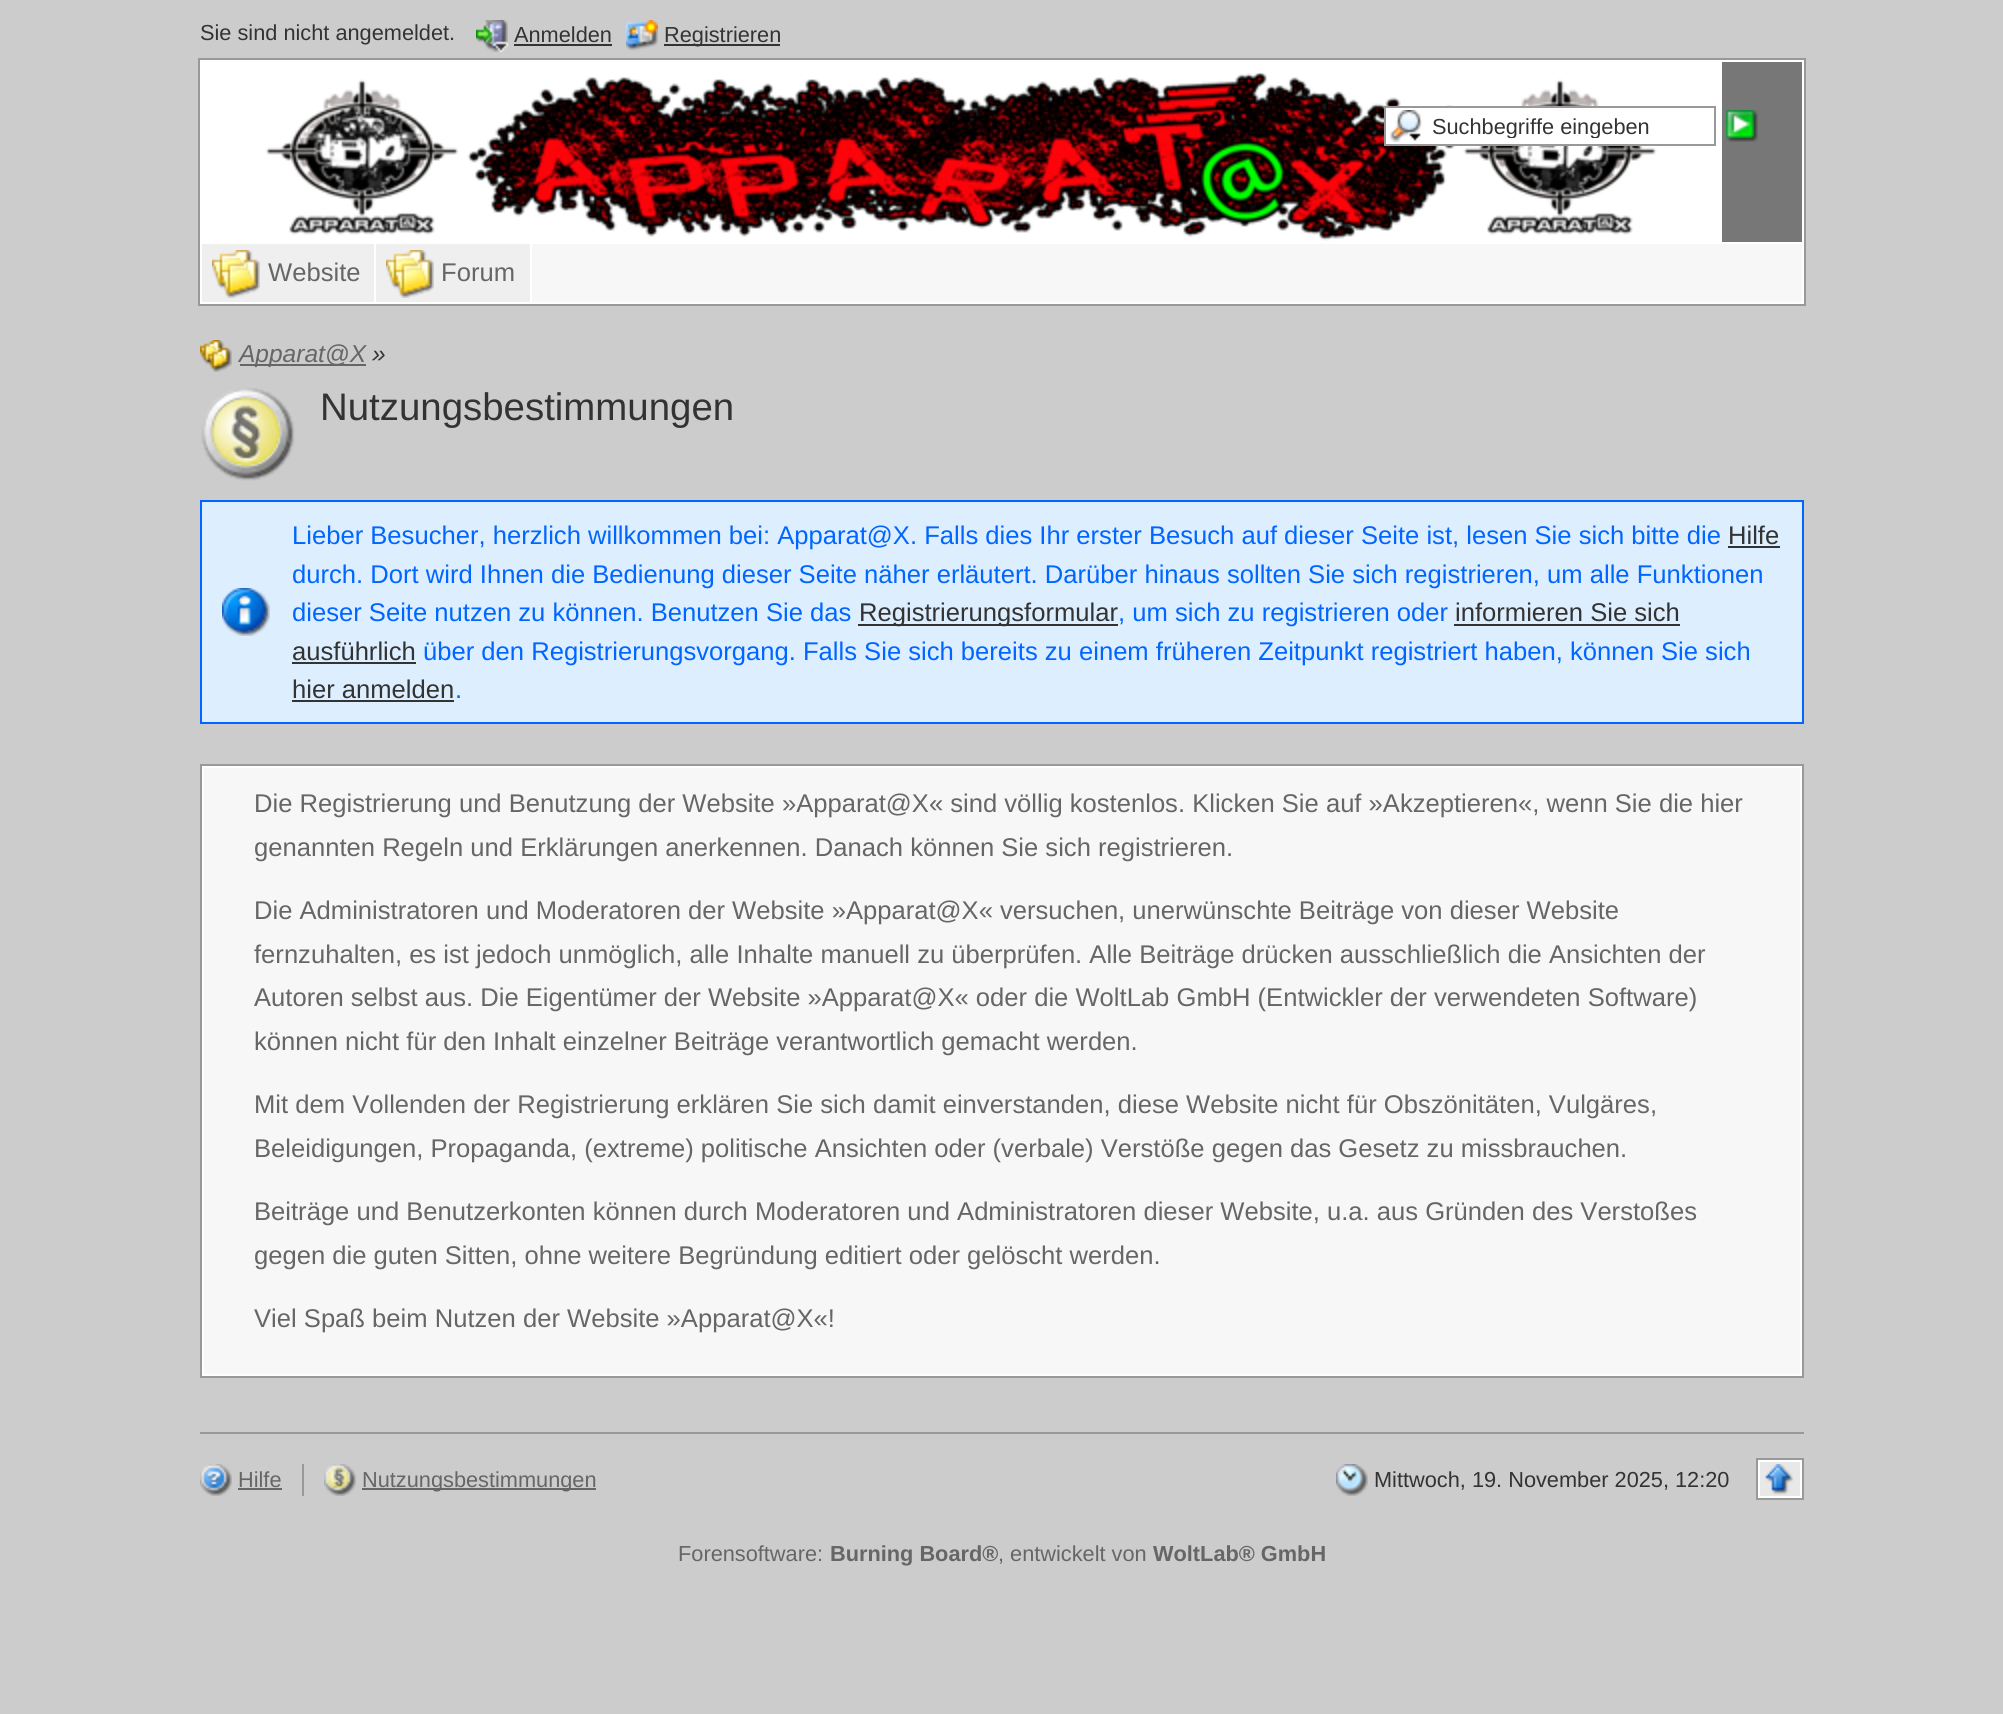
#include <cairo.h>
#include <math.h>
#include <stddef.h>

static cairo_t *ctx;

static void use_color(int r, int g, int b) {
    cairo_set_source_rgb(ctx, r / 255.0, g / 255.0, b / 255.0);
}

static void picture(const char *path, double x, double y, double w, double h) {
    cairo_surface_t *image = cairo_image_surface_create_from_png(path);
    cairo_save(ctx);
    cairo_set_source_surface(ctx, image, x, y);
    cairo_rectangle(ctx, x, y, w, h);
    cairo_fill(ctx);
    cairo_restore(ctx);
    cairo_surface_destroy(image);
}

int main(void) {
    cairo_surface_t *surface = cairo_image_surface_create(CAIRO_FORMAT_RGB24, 2003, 1714);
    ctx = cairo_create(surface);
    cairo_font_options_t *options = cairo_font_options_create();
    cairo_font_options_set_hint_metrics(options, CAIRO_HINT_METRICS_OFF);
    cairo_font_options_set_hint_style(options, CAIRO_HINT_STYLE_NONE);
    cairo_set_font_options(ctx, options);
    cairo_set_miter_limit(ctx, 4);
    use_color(204, 204, 204);
    cairo_paint(ctx);
    cairo_select_font_face(ctx, "Liberation Sans", CAIRO_FONT_SLANT_NORMAL, CAIRO_FONT_WEIGHT_NORMAL);
    cairo_set_font_size(ctx, 21.75);
    use_color(51, 51, 51);
    cairo_move_to(ctx, 200, 40);
    cairo_show_text(ctx, "Sie sind nicht angemeldet.");
    picture("img1.png", 476, 20, 32, 32);
    cairo_move_to(ctx, 514, 42);
    cairo_show_text(ctx, "Anmelden");
    cairo_rectangle(ctx, 514, 44, 98, 2);
    cairo_fill(ctx);
    picture("img2.png", 626, 20, 32, 31);
    cairo_rectangle(ctx, 664, 44, 116, 2);
    cairo_fill(ctx);
    cairo_move_to(ctx, 664, 42);
    cairo_show_text(ctx, "Registrieren");
    use_color(119, 119, 119);
    cairo_rectangle(ctx, 1722, 62, 80, 180);
    cairo_fill(ctx);
    use_color(153, 153, 153);
    cairo_rectangle(ctx, 198, 58, 1608, 2);
    cairo_fill(ctx);
    cairo_rectangle(ctx, 1804, 242, 2, 64);
    cairo_fill(ctx);
    cairo_rectangle(ctx, 1804, 58, 2, 186);
    cairo_fill(ctx);
    cairo_rectangle(ctx, 198, 304, 1608, 2);
    cairo_fill(ctx);
    cairo_rectangle(ctx, 198, 242, 2, 64);
    cairo_fill(ctx);
    cairo_rectangle(ctx, 198, 58, 2, 186);
    cairo_fill(ctx);
    use_color(255, 255, 255);
    cairo_rectangle(ctx, 1802, 242, 2, 62);
    cairo_fill(ctx);
    use_color(239, 239, 239);
    cairo_rectangle(ctx, 201, 243, 174, 60);
    cairo_fill_preserve(ctx);
    use_color(255, 255, 255);
    cairo_stroke(ctx);
    use_color(239, 239, 239);
    cairo_rectangle(ctx, 375, 243, 156, 60);
    cairo_fill_preserve(ctx);
    use_color(255, 255, 255);
    cairo_stroke(ctx);
    cairo_rectangle(ctx, 201, 61, 1602, 182);
    cairo_stroke(ctx);
    picture("img3.png", 202, 62, 1520, 180);
    cairo_rectangle(ctx, 1386, 108, 255, 36);
    cairo_fill(ctx);
    picture("img4.png", 1390, 110, 32, 32);
    cairo_rectangle(ctx, 1385, 107, 330, 38);
    use_color(153, 153, 153);
    cairo_stroke(ctx);
    cairo_save(ctx);
    cairo_rectangle(ctx, 1432, 114, 282, 24);
    cairo_clip(ctx);
    use_color(51, 51, 51);
    cairo_move_to(ctx, 1432, 134);
    cairo_show_text(ctx, "Suchbegriffe eingeben");
    cairo_restore(ctx);
    picture("img5.png", 1726, 110, 32, 32);
    use_color(247, 247, 247);
    cairo_rectangle(ctx, 532, 244, 1270, 58);
    cairo_fill(ctx);
    use_color(255, 255, 255);
    cairo_rectangle(ctx, 532, 302, 1272, 2);
    cairo_fill(ctx);
    picture("img6.png", 212, 250, 48, 48);
    cairo_set_font_size(ctx, 25.6);
    use_color(102, 102, 102);
    cairo_move_to(ctx, 268, 281);
    cairo_show_text(ctx, "Website");
    picture("img6.png", 386, 250, 48, 48);
    cairo_move_to(ctx, 441, 281);
    cairo_show_text(ctx, "Forum");
    picture("img7.png", 200, 340, 32, 32);
    cairo_rectangle(ctx, 240, 364, 126, 2);
    cairo_fill(ctx);
    cairo_select_font_face(ctx, "Liberation Sans", CAIRO_FONT_SLANT_ITALIC, CAIRO_FONT_WEIGHT_NORMAL);
    cairo_set_font_size(ctx, 24.5);
    cairo_move_to(ctx, 239, 362);
    cairo_show_text(ctx, "Apparat@X");
    use_color(51, 51, 51);
    cairo_move_to(ctx, 372, 362);
    cairo_show_text(ctx, "»");
    picture("img8.png", 201, 388, 94, 93);
    cairo_select_font_face(ctx, "Liberation Sans", CAIRO_FONT_SLANT_NORMAL, CAIRO_FONT_WEIGHT_NORMAL);
    cairo_set_font_size(ctx, 38.4);
    cairo_move_to(ctx, 320, 420);
    cairo_show_text(ctx, "Nutzungsbestimmungen");
    use_color(221, 238, 255);
    cairo_rectangle(ctx, 202, 502, 1600, 220);
    cairo_fill(ctx);
    picture("img9.png", 222, 588, 48, 48);
    cairo_rectangle(ctx, 201, 501, 1602, 222);
    use_color(0, 102, 255);
    cairo_stroke(ctx);
    cairo_set_font_size(ctx, 25.6);
    cairo_move_to(ctx, 292, 544);
    cairo_show_text(ctx, "Lieber Besucher, herzlich willkommen bei: Apparat@X. Falls dies Ihr erster Besuch auf dieser Seite ist, lesen Sie sich bitte die");
    use_color(51, 51, 51);
    cairo_move_to(ctx, 1728, 544);
    cairo_show_text(ctx, "Hilfe");
    cairo_rectangle(ctx, 1728, 546, 52, 2);
    cairo_fill(ctx);
    use_color(0, 102, 255);
    cairo_move_to(ctx, 292, 583);
    cairo_show_text(ctx, "durch. Dort wird Ihnen die Bedienung dieser Seite näher erläutert. Darüber hinaus sollten Sie sich registrieren, um alle Funktionen");
    cairo_move_to(ctx, 292, 621);
    cairo_show_text(ctx, "dieser Seite nutzen zu können. Benutzen Sie das");
    use_color(51, 51, 51);
    cairo_rectangle(ctx, 858, 624, 260, 2);
    cairo_fill(ctx);
    cairo_move_to(ctx, 859, 621);
    cairo_show_text(ctx, "Registrierungsformular");
    use_color(0, 102, 255);
    cairo_move_to(ctx, 1118, 621);
    cairo_show_text(ctx, ", um sich zu registrieren oder");
    use_color(51, 51, 51);
    cairo_move_to(ctx, 1455, 621);
    cairo_show_text(ctx, "informieren Sie sich");
    cairo_rectangle(ctx, 1454, 624, 226, 2);
    cairo_fill(ctx);
    cairo_move_to(ctx, 292, 660);
    cairo_show_text(ctx, "ausführlich");
    cairo_rectangle(ctx, 292, 662, 124, 2);
    cairo_fill(ctx);
    use_color(0, 102, 255);
    cairo_move_to(ctx, 423, 660);
    cairo_show_text(ctx, "über den Registrierungsvorgang. Falls Sie sich bereits zu einem früheren Zeitpunkt registriert haben, können Sie sich");
    use_color(51, 51, 51);
    cairo_move_to(ctx, 292, 698);
    cairo_show_text(ctx, "hier anmelden");
    cairo_rectangle(ctx, 292, 700, 162, 2);
    cairo_fill(ctx);
    use_color(0, 102, 255);
    cairo_move_to(ctx, 455, 698);
    cairo_show_text(ctx, ".");
    use_color(255, 255, 255);
    cairo_rectangle(ctx, 201, 765, 1602, 612);
    cairo_fill_preserve(ctx);
    use_color(153, 153, 153);
    cairo_stroke(ctx);
    use_color(247, 247, 247);
    cairo_rectangle(ctx, 204, 768, 1596, 606);
    cairo_fill(ctx);
    use_color(102, 102, 102);
    cairo_move_to(ctx, 254, 812);
    cairo_show_text(ctx, "Die Registrierung und Benutzung der Website »Apparat@X« sind völlig kostenlos. Klicken Sie auf »Akzeptieren«, wenn Sie die hier");
    cairo_move_to(ctx, 254, 856);
    cairo_show_text(ctx, "genannten Regeln und Erklärungen anerkennen. Danach können Sie sich registrieren.");
    cairo_move_to(ctx, 254, 919);
    cairo_show_text(ctx, "Die Administratoren und Moderatoren der Website »Apparat@X« versuchen, unerwünschte Beiträge von dieser Website");
    cairo_move_to(ctx, 254, 963);
    cairo_show_text(ctx, "fernzuhalten, es ist jedoch unmöglich, alle Inhalte manuell zu überprüfen. Alle Beiträge drücken ausschließlich die Ansichten der");
    cairo_move_to(ctx, 254, 1006);
    cairo_show_text(ctx, "Autoren selbst aus. Die Eigentümer der Website »Apparat@X« oder die WoltLab GmbH (Entwickler der verwendeten Software)");
    cairo_move_to(ctx, 254, 1050);
    cairo_show_text(ctx, "können nicht für den Inhalt einzelner Beiträge verantwortlich gemacht werden.");
    cairo_move_to(ctx, 254, 1113);
    cairo_show_text(ctx, "Mit dem Vollenden der Registrierung erklären Sie sich damit einverstanden, diese Website nicht für Obszönitäten, Vulgäres,");
    cairo_move_to(ctx, 254, 1157);
    cairo_show_text(ctx, "Beleidigungen, Propaganda, (extreme) politische Ansichten oder (verbale) Verstöße gegen das Gesetz zu missbrauchen.");
    cairo_move_to(ctx, 254, 1220);
    cairo_show_text(ctx, "Beiträge und Benutzerkonten können durch Moderatoren und Administratoren dieser Website, u.a. aus Gründen des Verstoßes");
    cairo_move_to(ctx, 254, 1264);
    cairo_show_text(ctx, "gegen die guten Sitten, ohne weitere Begründung editiert oder gelöscht werden.");
    cairo_move_to(ctx, 254, 1327);
    cairo_show_text(ctx, "Viel Spaß beim Nutzen der Website »Apparat@X«!");
    use_color(153, 153, 153);
    cairo_rectangle(ctx, 200, 1432, 1604, 2);
    cairo_fill(ctx);
    picture("img10.png", 200, 1464, 32, 32);
    cairo_set_font_size(ctx, 21.75);
    use_color(102, 102, 102);
    cairo_move_to(ctx, 238, 1487);
    cairo_show_text(ctx, "Hilfe");
    cairo_rectangle(ctx, 238, 1488, 44, 2);
    cairo_fill(ctx);
    use_color(153, 153, 153);
    cairo_rectangle(ctx, 302, 1464, 2, 32);
    cairo_fill(ctx);
    picture("img11.png", 324, 1464, 32, 32);
    use_color(102, 102, 102);
    cairo_rectangle(ctx, 362, 1488, 234, 2);
    cairo_fill(ctx);
    cairo_move_to(ctx, 362, 1487);
    cairo_show_text(ctx, "Nutzungsbestimmungen");
    picture("img12.png", 1336, 1464, 32, 32);
    use_color(51, 51, 51);
    cairo_move_to(ctx, 1374, 1487);
    cairo_show_text(ctx, "Mittwoch, 19. November 2025, 12:20");
    cairo_rectangle(ctx, 1757, 1459, 46, 40);
    use_color(153, 153, 153);
    cairo_stroke(ctx);
    use_color(232, 232, 232);
    cairo_rectangle(ctx, 1759, 1461, 42, 36);
    cairo_fill_preserve(ctx);
    use_color(255, 255, 255);
    cairo_stroke(ctx);
    picture("img13.png", 1765, 1464, 29, 31);
    use_color(102, 102, 102);
    cairo_move_to(ctx, 678, 1561);
    cairo_show_text(ctx, "Forensoftware:");
    cairo_select_font_face(ctx, "Liberation Sans", CAIRO_FONT_SLANT_NORMAL, CAIRO_FONT_WEIGHT_BOLD);
    cairo_move_to(ctx, 830, 1561);
    cairo_show_text(ctx, "Burning Board®");
    cairo_select_font_face(ctx, "Liberation Sans", CAIRO_FONT_SLANT_NORMAL, CAIRO_FONT_WEIGHT_NORMAL);
    cairo_move_to(ctx, 998, 1561);
    cairo_show_text(ctx, ", entwickelt von");
    cairo_select_font_face(ctx, "Liberation Sans", CAIRO_FONT_SLANT_NORMAL, CAIRO_FONT_WEIGHT_BOLD);
    cairo_move_to(ctx, 1153, 1561);
    cairo_show_text(ctx, "WoltLab® GmbH");
    cairo_surface_write_to_png(surface, "result.png");
    cairo_font_options_destroy(options);
    cairo_destroy(ctx);
    cairo_surface_destroy(surface);
    return 0;
}
